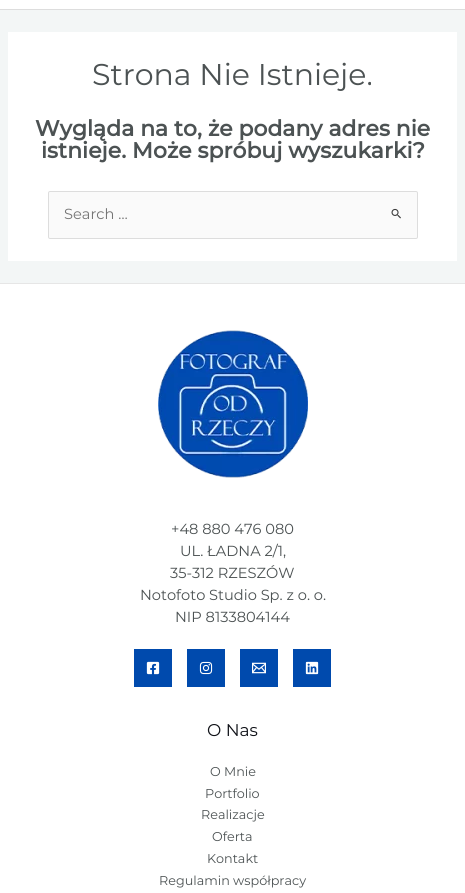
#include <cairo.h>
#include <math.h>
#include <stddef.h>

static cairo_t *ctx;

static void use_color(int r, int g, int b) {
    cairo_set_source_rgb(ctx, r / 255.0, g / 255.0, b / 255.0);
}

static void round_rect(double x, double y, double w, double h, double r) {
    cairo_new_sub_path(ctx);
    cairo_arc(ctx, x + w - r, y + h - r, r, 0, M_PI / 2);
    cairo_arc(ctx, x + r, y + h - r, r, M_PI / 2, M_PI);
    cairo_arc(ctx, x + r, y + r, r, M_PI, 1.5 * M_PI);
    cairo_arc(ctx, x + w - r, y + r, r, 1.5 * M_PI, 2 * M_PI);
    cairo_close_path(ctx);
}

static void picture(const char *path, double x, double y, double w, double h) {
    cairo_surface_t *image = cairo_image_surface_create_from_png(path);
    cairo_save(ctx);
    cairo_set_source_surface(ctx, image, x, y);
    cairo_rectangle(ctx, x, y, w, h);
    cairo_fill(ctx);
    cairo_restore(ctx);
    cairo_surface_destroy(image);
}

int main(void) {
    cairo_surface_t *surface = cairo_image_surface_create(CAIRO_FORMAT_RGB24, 465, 893);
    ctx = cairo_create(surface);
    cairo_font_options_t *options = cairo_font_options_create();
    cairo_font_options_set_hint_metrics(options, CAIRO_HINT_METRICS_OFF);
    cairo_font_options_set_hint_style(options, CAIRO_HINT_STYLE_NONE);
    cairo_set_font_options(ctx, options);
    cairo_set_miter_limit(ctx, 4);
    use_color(243, 246, 246);
    cairo_paint(ctx);
    use_color(255, 255, 255);
    cairo_rectangle(ctx, 0, 0, 465, 9);
    cairo_fill(ctx);
    use_color(221, 221, 221);
    cairo_rectangle(ctx, 0, 9, 465, 1);
    cairo_fill(ctx);
    use_color(255, 255, 255);
    cairo_rectangle(ctx, 8, 32, 449, 229);
    cairo_fill(ctx);
    cairo_select_font_face(ctx, "Montserrat", CAIRO_FONT_SLANT_NORMAL, CAIRO_FONT_WEIGHT_NORMAL);
    cairo_set_font_size(ctx, 30);
    use_color(76, 82, 83);
    cairo_move_to(ctx, 92, 85);
    cairo_show_text(ctx, "Strona Nie Istnieje.");
    cairo_select_font_face(ctx, "Montserrat", CAIRO_FONT_SLANT_NORMAL, CAIRO_FONT_WEIGHT_BOLD);
    cairo_set_font_size(ctx, 21.9);
    cairo_move_to(ctx, 35, 136);
    cairo_show_text(ctx, "Wygląda na to, że podany adres nie");
    cairo_move_to(ctx, 41, 158);
    cairo_show_text(ctx, "istnieje. Może spróbuj wyszukarki?");
    use_color(250, 250, 250);
    round_rect(48.5, 191.5, 369, 47, 1.5);
    cairo_fill_preserve(ctx);
    use_color(221, 221, 221);
    cairo_set_line_width(ctx, 1);
    cairo_stroke(ctx);
    cairo_select_font_face(ctx, "Montserrat", CAIRO_FONT_SLANT_NORMAL, CAIRO_FONT_WEIGHT_NORMAL);
    cairo_set_font_size(ctx, 14.6);
    use_color(117, 117, 117);
    cairo_move_to(ctx, 64, 219);
    cairo_show_text(ctx, "Search …");
    picture("img1.png", 391, 208, 10, 11);
    use_color(255, 255, 255);
    cairo_rectangle(ctx, 0, 284, 465, 609);
    cairo_fill(ctx);
    use_color(230, 230, 230);
    cairo_rectangle(ctx, 0, 283, 465, 1);
    cairo_fill(ctx);
    picture("img2.png", 158, 330, 150, 148);
    use_color(76, 82, 83);
    cairo_move_to(ctx, 171, 534);
    cairo_show_text(ctx, "+48 880 476 080");
    cairo_move_to(ctx, 180, 556);
    cairo_show_text(ctx, "UL. ŁADNA 2/1,");
    cairo_move_to(ctx, 170, 578);
    cairo_show_text(ctx, "35-312 RZESZÓW");
    cairo_move_to(ctx, 140, 600);
    cairo_show_text(ctx, "Notofoto Studio Sp. z o. o.");
    cairo_move_to(ctx, 175, 622);
    cairo_show_text(ctx, "NIP 8133804144");
    use_color(0, 74, 173);
    cairo_rectangle(ctx, 134, 649, 38, 38);
    cairo_fill(ctx);
    picture("img3.png", 146, 661, 14, 14);
    cairo_rectangle(ctx, 187, 649, 38, 38);
    cairo_fill(ctx);
    picture("img4.png", 199, 661, 14, 14);
    cairo_rectangle(ctx, 240, 649, 38, 38);
    cairo_fill(ctx);
    picture("img5.png", 252, 662, 14, 12);
    cairo_rectangle(ctx, 293, 649, 38, 38);
    cairo_fill(ctx);
    picture("img6.png", 305, 661, 14, 14);
    cairo_set_font_size(ctx, 17);
    use_color(16, 18, 24);
    cairo_move_to(ctx, 207, 736);
    cairo_show_text(ctx, "O Nas");
    cairo_set_font_size(ctx, 12.75);
    use_color(76, 82, 83);
    cairo_move_to(ctx, 210, 776);
    cairo_show_text(ctx, "O Mnie");
    cairo_move_to(ctx, 205, 798);
    cairo_show_text(ctx, "Portfolio");
    cairo_move_to(ctx, 201, 819);
    cairo_show_text(ctx, "Realizacje");
    cairo_move_to(ctx, 212, 841);
    cairo_show_text(ctx, "Oferta");
    cairo_move_to(ctx, 207, 863);
    cairo_show_text(ctx, "Kontakt");
    cairo_move_to(ctx, 159, 885);
    cairo_show_text(ctx, "Regulamin współpracy");
    cairo_surface_write_to_png(surface, "result.png");
    cairo_font_options_destroy(options);
    cairo_destroy(ctx);
    cairo_surface_destroy(surface);
    return 0;
}
